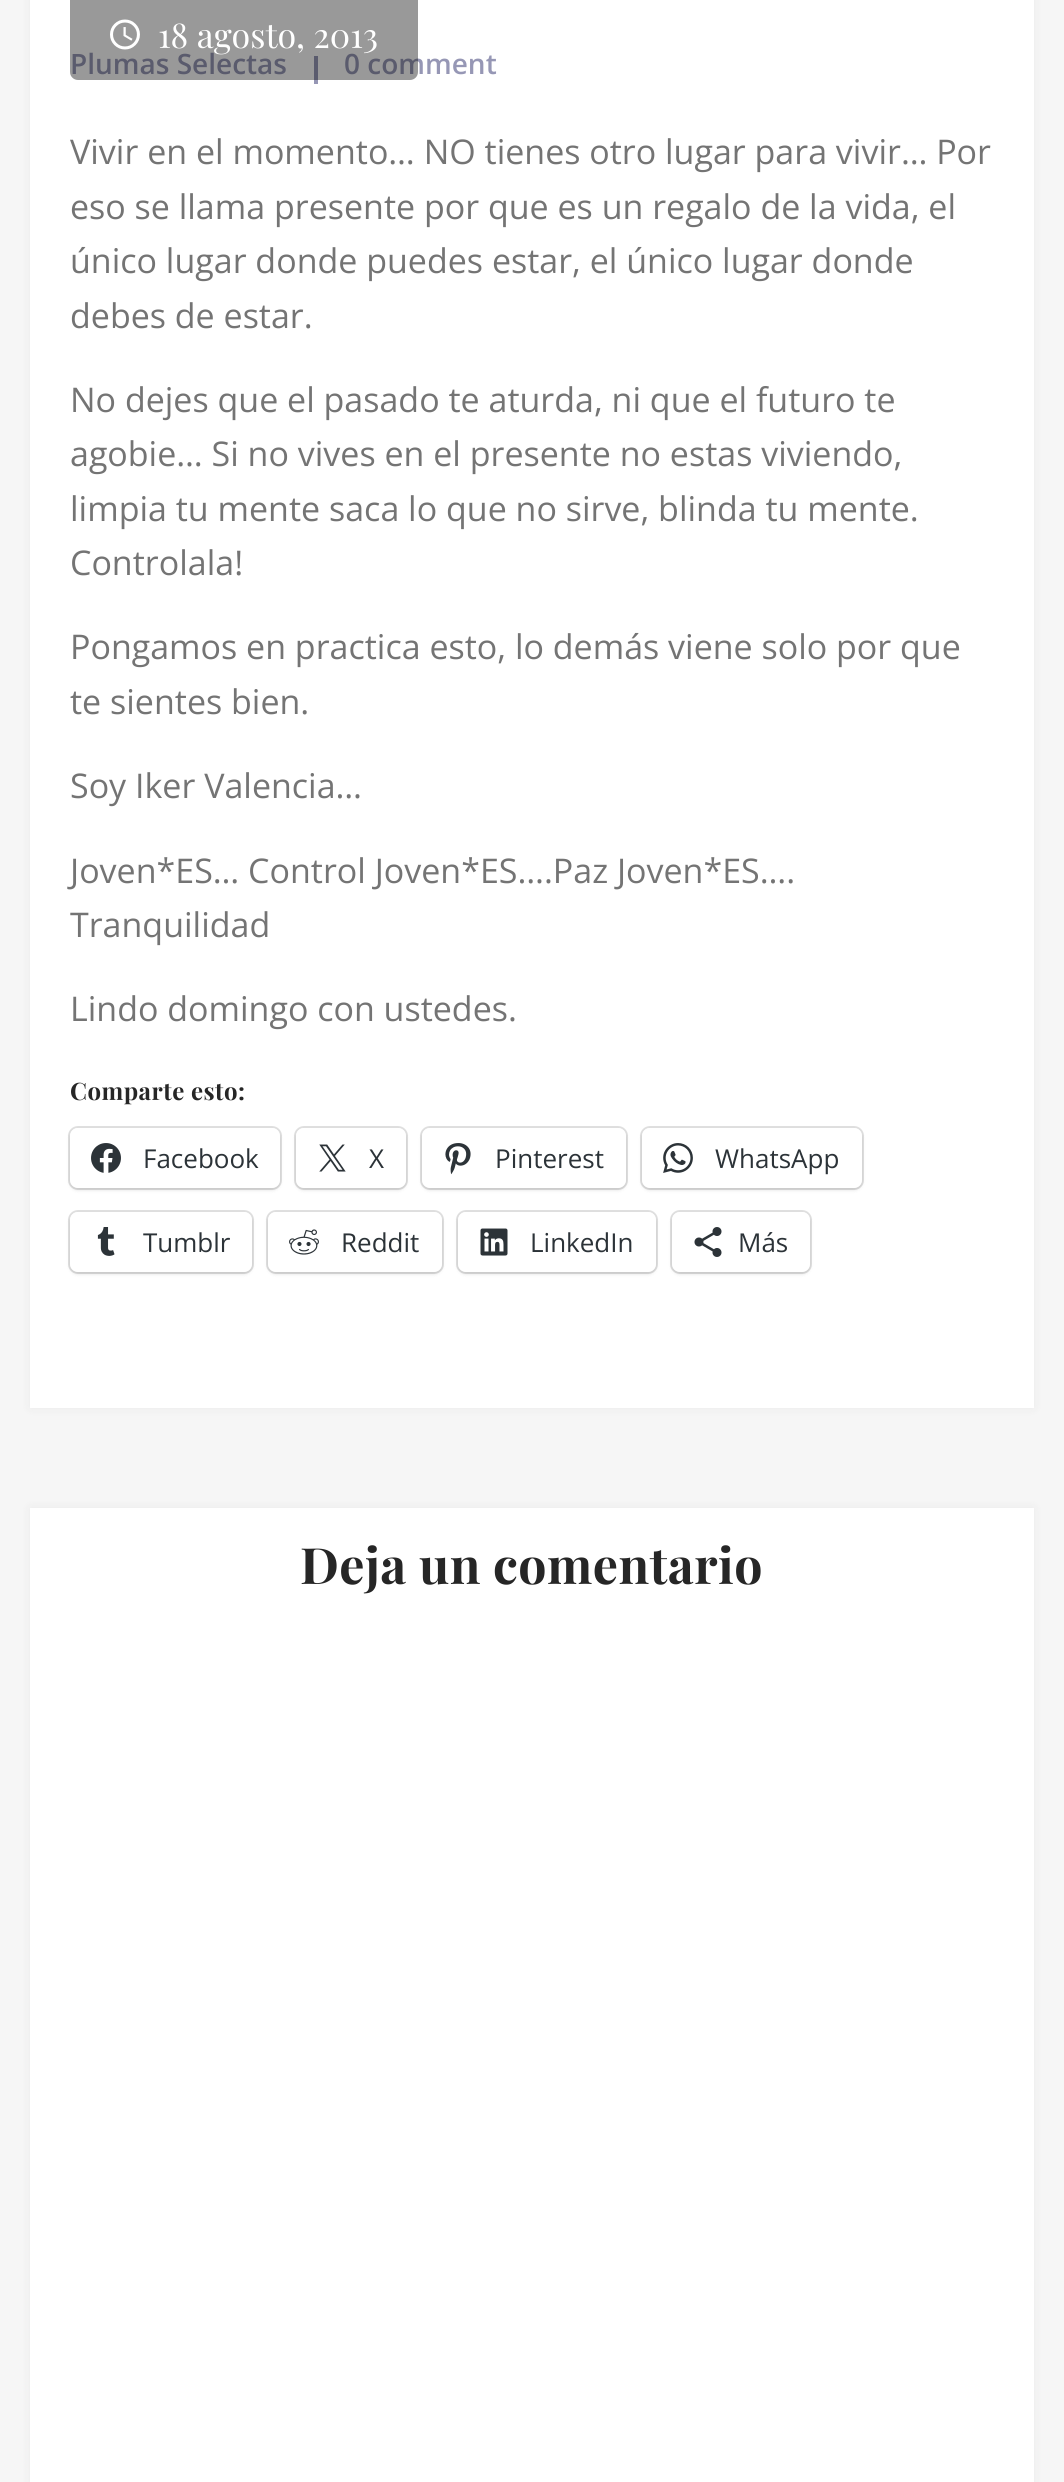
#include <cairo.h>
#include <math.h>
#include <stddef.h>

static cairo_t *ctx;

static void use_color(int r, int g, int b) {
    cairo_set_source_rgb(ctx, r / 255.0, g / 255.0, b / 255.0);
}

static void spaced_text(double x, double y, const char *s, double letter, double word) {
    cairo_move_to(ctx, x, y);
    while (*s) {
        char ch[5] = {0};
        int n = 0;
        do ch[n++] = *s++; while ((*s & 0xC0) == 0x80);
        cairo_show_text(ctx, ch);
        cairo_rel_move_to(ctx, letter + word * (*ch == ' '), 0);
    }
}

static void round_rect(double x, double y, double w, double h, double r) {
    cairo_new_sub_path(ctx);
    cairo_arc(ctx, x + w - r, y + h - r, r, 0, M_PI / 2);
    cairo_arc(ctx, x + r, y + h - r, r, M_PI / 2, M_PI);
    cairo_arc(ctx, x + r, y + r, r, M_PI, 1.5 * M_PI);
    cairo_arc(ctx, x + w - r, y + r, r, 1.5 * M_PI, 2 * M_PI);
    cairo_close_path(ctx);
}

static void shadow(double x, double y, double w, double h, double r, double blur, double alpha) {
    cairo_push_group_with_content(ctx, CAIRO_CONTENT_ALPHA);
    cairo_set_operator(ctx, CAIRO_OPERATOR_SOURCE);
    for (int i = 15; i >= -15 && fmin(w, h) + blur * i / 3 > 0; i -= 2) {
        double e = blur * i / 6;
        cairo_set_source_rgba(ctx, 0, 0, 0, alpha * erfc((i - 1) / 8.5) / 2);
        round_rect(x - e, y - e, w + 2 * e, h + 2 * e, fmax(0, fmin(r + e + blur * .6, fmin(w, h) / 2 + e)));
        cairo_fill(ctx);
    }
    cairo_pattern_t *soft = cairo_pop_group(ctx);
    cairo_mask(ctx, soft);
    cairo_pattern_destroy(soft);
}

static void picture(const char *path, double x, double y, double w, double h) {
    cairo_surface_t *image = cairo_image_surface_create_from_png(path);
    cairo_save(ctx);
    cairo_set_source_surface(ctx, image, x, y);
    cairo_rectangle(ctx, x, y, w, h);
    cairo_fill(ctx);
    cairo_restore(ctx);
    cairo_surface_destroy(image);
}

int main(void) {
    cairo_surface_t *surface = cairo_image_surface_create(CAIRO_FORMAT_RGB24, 1064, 2482);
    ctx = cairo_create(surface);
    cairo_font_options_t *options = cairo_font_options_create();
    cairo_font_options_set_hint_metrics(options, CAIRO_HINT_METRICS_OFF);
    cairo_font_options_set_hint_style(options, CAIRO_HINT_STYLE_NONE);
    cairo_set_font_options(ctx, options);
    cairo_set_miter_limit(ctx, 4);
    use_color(246, 246, 246);
    cairo_paint(ctx);
    use_color(0, 0, 0);
    shadow(30, -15, 1004, 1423, 0, 5, 0.05);
    use_color(255, 255, 255);
    cairo_rectangle(ctx, 30, 0, 1004, 1408);
    cairo_fill(ctx);
    cairo_select_font_face(ctx, "Open Sans SemiBold", CAIRO_FONT_SLANT_NORMAL, CAIRO_FONT_WEIGHT_NORMAL);
    cairo_set_font_size(ctx, 28);
    use_color(150, 151, 181);
    cairo_move_to(ctx, 70, 74);
    cairo_show_text(ctx, "Plumas Selectas");
    cairo_rectangle(ctx, 314, 56, 4, 28);
    cairo_fill(ctx);
    cairo_move_to(ctx, 344, 74);
    cairo_show_text(ctx, "0 comment");
    cairo_set_source_rgba(ctx, 0, 0, 0, 0.4);
    round_rect(70, -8, 348, 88, 8);
    cairo_fill(ctx);
    picture("img1.png", 110, 19, 30, 31);
    cairo_select_font_face(ctx, "Playfair Display", CAIRO_FONT_SLANT_NORMAL, CAIRO_FONT_WEIGHT_NORMAL);
    cairo_set_font_size(ctx, 34);
    use_color(255, 255, 255);
    cairo_move_to(ctx, 158, 48);
    cairo_show_text(ctx, "18 agosto, 2013");
    cairo_select_font_face(ctx, "Open Sans", CAIRO_FONT_SLANT_NORMAL, CAIRO_FONT_WEIGHT_NORMAL);
    use_color(116, 116, 116);
    cairo_move_to(ctx, 70, 164);
    cairo_show_text(ctx, "Vivir en el momento… NO tienes otro lugar para vivir… Por");
    cairo_move_to(ctx, 70, 219);
    cairo_show_text(ctx, "eso se llama presente por que es un regalo de la vida, el");
    cairo_move_to(ctx, 70, 273);
    cairo_show_text(ctx, "único lugar donde puedes estar, el único lugar donde");
    cairo_move_to(ctx, 70, 328);
    cairo_show_text(ctx, "debes de estar.");
    cairo_move_to(ctx, 70, 412);
    cairo_show_text(ctx, "No dejes que el pasado te aturda, ni que el futuro te");
    cairo_move_to(ctx, 70, 466);
    cairo_show_text(ctx, "agobie… Si no vives en el presente no estas viviendo,");
    cairo_move_to(ctx, 70, 521);
    cairo_show_text(ctx, "limpia tu mente saca lo que no sirve, blinda tu mente.");
    cairo_move_to(ctx, 70, 575);
    cairo_show_text(ctx, "Controlala!");
    cairo_move_to(ctx, 70, 659);
    cairo_show_text(ctx, "Pongamos en practica esto, lo demás viene solo por que");
    cairo_move_to(ctx, 70, 714);
    cairo_show_text(ctx, "te sientes bien.");
    cairo_move_to(ctx, 70, 798);
    cairo_show_text(ctx, "Soy Iker Valencia…");
    cairo_move_to(ctx, 70, 883);
    cairo_show_text(ctx, "Joven*ES… Control Joven*ES….Paz Joven*ES….");
    cairo_move_to(ctx, 70, 937);
    cairo_show_text(ctx, "Tranquilidad");
    cairo_move_to(ctx, 70, 1021);
    cairo_show_text(ctx, "Lindo domingo con ustedes.");
    cairo_select_font_face(ctx, "Playfair Display", CAIRO_FONT_SLANT_NORMAL, CAIRO_FONT_WEIGHT_BOLD);
    cairo_set_font_size(ctx, 24);
    use_color(38, 38, 38);
    spaced_text(70, 1100, "Comparte esto:", 0.5, 0);
    round_rect(69, 1127, 212, 62, 9);
    use_color(224, 224, 224);
    cairo_stroke(ctx);
    use_color(0, 0, 0);
    shadow(70, 1130, 210, 60, 8, 2, 0.12);
    use_color(255, 255, 255);
    round_rect(70, 1128, 210, 60, 8);
    cairo_fill(ctx);
    picture("img2.png", 91, 1143, 30, 30);
    cairo_select_font_face(ctx, "Open Sans", CAIRO_FONT_SLANT_NORMAL, CAIRO_FONT_WEIGHT_NORMAL);
    cairo_set_font_size(ctx, 26);
    use_color(44, 51, 56);
    cairo_move_to(ctx, 143, 1168);
    cairo_show_text(ctx, "Facebook");
    round_rect(295, 1127, 112, 62, 9);
    use_color(224, 224, 224);
    cairo_stroke(ctx);
    use_color(0, 0, 0);
    shadow(296, 1130, 110, 60, 8, 2, 0.12);
    use_color(255, 255, 255);
    round_rect(296, 1128, 110, 60, 8);
    cairo_fill(ctx);
    picture("img3.png", 319, 1144, 27, 28);
    use_color(44, 51, 56);
    cairo_move_to(ctx, 369, 1168);
    cairo_show_text(ctx, "X");
    round_rect(421, 1127, 206, 62, 9);
    use_color(224, 224, 224);
    cairo_stroke(ctx);
    use_color(0, 0, 0);
    shadow(422, 1130, 204, 60, 8, 2, 0.12);
    use_color(255, 255, 255);
    round_rect(422, 1128, 204, 60, 8);
    cairo_fill(ctx);
    picture("img4.png", 445, 1143, 26, 32);
    use_color(44, 51, 56);
    cairo_move_to(ctx, 495, 1168);
    cairo_show_text(ctx, "Pinterest");
    round_rect(641, 1127, 222, 62, 9);
    use_color(224, 224, 224);
    cairo_stroke(ctx);
    use_color(0, 0, 0);
    shadow(642, 1130, 220, 60, 8, 2, 0.12);
    use_color(255, 255, 255);
    round_rect(642, 1128, 220, 60, 8);
    cairo_fill(ctx);
    picture("img5.png", 663, 1143, 30, 30);
    use_color(44, 51, 56);
    cairo_move_to(ctx, 715, 1168);
    cairo_show_text(ctx, "WhatsApp");
    round_rect(69, 1211, 184, 62, 9);
    use_color(224, 224, 224);
    cairo_stroke(ctx);
    use_color(0, 0, 0);
    shadow(70, 1214, 182, 60, 8, 2, 0.12);
    use_color(255, 255, 255);
    round_rect(70, 1212, 182, 60, 8);
    cairo_fill(ctx);
    picture("img6.png", 97, 1227, 18, 29);
    use_color(44, 51, 56);
    cairo_move_to(ctx, 143, 1252);
    cairo_show_text(ctx, "Tumblr");
    round_rect(267, 1211, 176, 62, 9);
    use_color(224, 224, 224);
    cairo_stroke(ctx);
    use_color(0, 0, 0);
    shadow(268, 1214, 174, 60, 8, 2, 0.12);
    use_color(255, 255, 255);
    round_rect(268, 1212, 174, 60, 8);
    cairo_fill(ctx);
    picture("img7.png", 289, 1229, 30, 26);
    use_color(44, 51, 56);
    cairo_move_to(ctx, 341, 1252);
    cairo_show_text(ctx, "Reddit");
    round_rect(457, 1211, 200, 62, 9);
    use_color(224, 224, 224);
    cairo_stroke(ctx);
    use_color(0, 0, 0);
    shadow(458, 1214, 198, 60, 8, 2, 0.12);
    use_color(255, 255, 255);
    round_rect(458, 1212, 198, 60, 8);
    cairo_fill(ctx);
    picture("img8.png", 480, 1228, 28, 28);
    use_color(44, 51, 56);
    cairo_move_to(ctx, 530, 1252);
    cairo_show_text(ctx, "LinkedIn");
    round_rect(671, 1211, 140, 62, 9);
    use_color(224, 224, 224);
    cairo_stroke(ctx);
    use_color(0, 0, 0);
    shadow(672, 1214, 138, 60, 8, 2, 0.12);
    use_color(255, 255, 255);
    round_rect(672, 1212, 138, 60, 8);
    cairo_fill(ctx);
    picture("img9.png", 694, 1227, 28, 30);
    use_color(44, 51, 56);
    cairo_move_to(ctx, 738, 1252);
    cairo_show_text(ctx, "Más");
    use_color(0, 0, 0);
    shadow(30, 1508, 1004, 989, 0, 5, 0.05);
    use_color(255, 255, 255);
    cairo_rectangle(ctx, 30, 1508, 1004, 974);
    cairo_fill(ctx);
    cairo_select_font_face(ctx, "Playfair Display", CAIRO_FONT_SLANT_NORMAL, CAIRO_FONT_WEIGHT_BOLD);
    cairo_set_font_size(ctx, 50);
    use_color(38, 38, 38);
    spaced_text(300, 1584, "Deja un comentario", 0.5, 0);
    cairo_surface_write_to_png(surface, "result.png");
    cairo_font_options_destroy(options);
    cairo_destroy(ctx);
    cairo_surface_destroy(surface);
    return 0;
}
